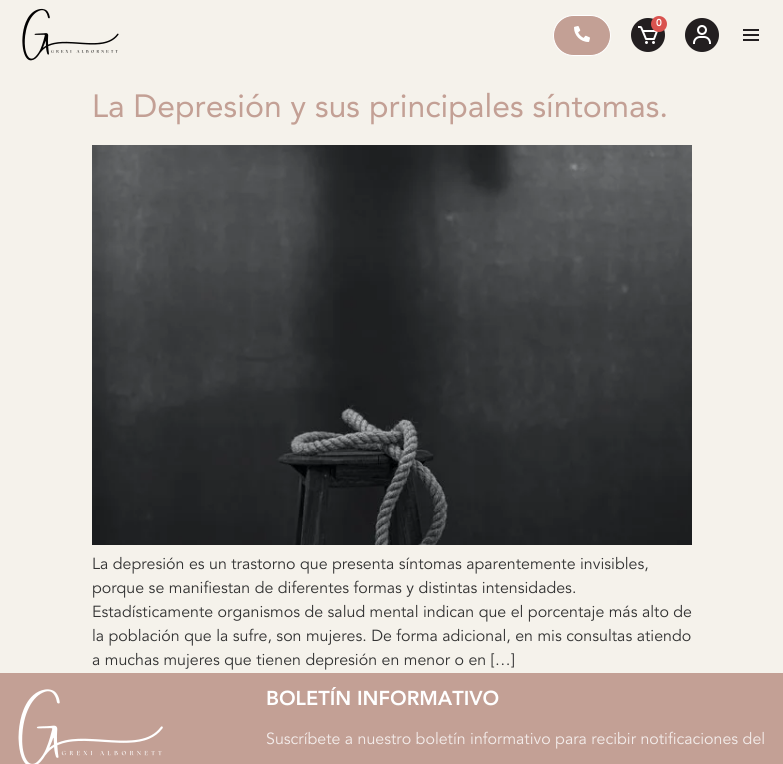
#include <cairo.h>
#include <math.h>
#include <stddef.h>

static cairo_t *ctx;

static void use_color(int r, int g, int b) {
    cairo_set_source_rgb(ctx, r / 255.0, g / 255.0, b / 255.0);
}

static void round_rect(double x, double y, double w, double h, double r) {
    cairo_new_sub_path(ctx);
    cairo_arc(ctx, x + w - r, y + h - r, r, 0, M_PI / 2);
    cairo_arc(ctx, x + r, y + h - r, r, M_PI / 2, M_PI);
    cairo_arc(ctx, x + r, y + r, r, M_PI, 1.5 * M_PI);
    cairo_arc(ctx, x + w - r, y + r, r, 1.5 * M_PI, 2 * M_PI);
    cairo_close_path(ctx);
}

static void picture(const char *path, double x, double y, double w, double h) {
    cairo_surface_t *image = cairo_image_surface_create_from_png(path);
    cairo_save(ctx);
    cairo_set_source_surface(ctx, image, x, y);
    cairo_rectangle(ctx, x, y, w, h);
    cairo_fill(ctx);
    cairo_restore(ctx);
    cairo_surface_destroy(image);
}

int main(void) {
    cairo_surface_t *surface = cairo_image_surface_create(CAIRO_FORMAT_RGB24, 783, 764);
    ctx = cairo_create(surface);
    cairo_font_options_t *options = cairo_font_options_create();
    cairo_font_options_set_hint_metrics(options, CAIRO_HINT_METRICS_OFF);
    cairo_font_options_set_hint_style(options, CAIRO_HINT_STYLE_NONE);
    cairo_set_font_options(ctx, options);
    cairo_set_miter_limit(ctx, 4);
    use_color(245, 242, 235);
    cairo_paint(ctx);
    picture("img1.png", 22, 8, 97, 53);
    use_color(195, 160, 149);
    round_rect(553.5, 15.5, 57, 40, 20);
    cairo_fill_preserve(ctx);
    use_color(255, 255, 255);
    cairo_set_line_width(ctx, 1);
    cairo_stroke(ctx);
    picture("img2.png", 574, 26, 16, 16);
    use_color(35, 31, 32);
    cairo_arc(ctx, 648, 35, 17, 0, 2 * M_PI);
    cairo_fill(ctx);
    picture("img3.png", 638, 26, 20, 18);
    use_color(217, 83, 79);
    cairo_arc(ctx, 659, 24, 8, 0, 2 * M_PI);
    cairo_fill(ctx);
    cairo_select_font_face(ctx, "Avenir Black", CAIRO_FONT_SLANT_NORMAL, CAIRO_FONT_WEIGHT_NORMAL);
    cairo_set_font_size(ctx, 10);
    use_color(255, 255, 255);
    cairo_move_to(ctx, 656, 26);
    cairo_show_text(ctx, "0");
    use_color(35, 31, 32);
    cairo_new_path(ctx);
    cairo_arc(ctx, 702, 35, 17, 0, 2 * M_PI);
    cairo_fill(ctx);
    picture("img4.png", 693, 25, 18, 19);
    picture("img5.png", 743, 29, 16, 12);
    cairo_select_font_face(ctx, "Avenir", CAIRO_FONT_SLANT_NORMAL, CAIRO_FONT_WEIGHT_NORMAL);
    cairo_set_font_size(ctx, 32);
    use_color(195, 160, 149);
    cairo_move_to(ctx, 92, 117);
    cairo_show_text(ctx, "La Depresión y sus principales síntomas.");
    picture("img6.png", 92, 145, 600, 400);
    cairo_select_font_face(ctx, "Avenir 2", CAIRO_FONT_SLANT_NORMAL, CAIRO_FONT_WEIGHT_NORMAL);
    cairo_set_font_size(ctx, 16);
    use_color(51, 51, 51);
    cairo_move_to(ctx, 92, 569);
    cairo_show_text(ctx, "La depresión es un trastorno que presenta síntomas aparentemente invisibles,");
    cairo_move_to(ctx, 92, 593);
    cairo_show_text(ctx, "porque se manifiestan de diferentes formas y distintas intensidades.");
    cairo_move_to(ctx, 92, 617);
    cairo_show_text(ctx, "Estadísticamente organismos de salud mental indican que el porcentaje más alto de");
    cairo_move_to(ctx, 92, 641);
    cairo_show_text(ctx, "la población que la sufre, son mujeres. De forma adicional, en mis consultas atiendo");
    cairo_move_to(ctx, 92, 665);
    cairo_show_text(ctx, "a muchas mujeres que tienen depresión en menor o en […]");
    use_color(195, 160, 149);
    cairo_rectangle(ctx, 0, 673, 783, 91);
    cairo_fill(ctx);
    picture("img7.png", 18, 689, 145, 75);
    cairo_select_font_face(ctx, "Avenir Black", CAIRO_FONT_SLANT_NORMAL, CAIRO_FONT_WEIGHT_NORMAL);
    cairo_set_font_size(ctx, 20);
    use_color(255, 255, 255);
    cairo_move_to(ctx, 266, 705);
    cairo_show_text(ctx, "BOLETÍN INFORMATIVO");
    cairo_select_font_face(ctx, "Avenir 2", CAIRO_FONT_SLANT_NORMAL, CAIRO_FONT_WEIGHT_NORMAL);
    cairo_set_font_size(ctx, 16);
    use_color(243, 236, 234);
    cairo_move_to(ctx, 266, 744);
    cairo_show_text(ctx, "Suscríbete a nuestro boletín informativo para recibir notificaciones del");
    cairo_surface_write_to_png(surface, "result.png");
    cairo_font_options_destroy(options);
    cairo_destroy(ctx);
    cairo_surface_destroy(surface);
    return 0;
}
